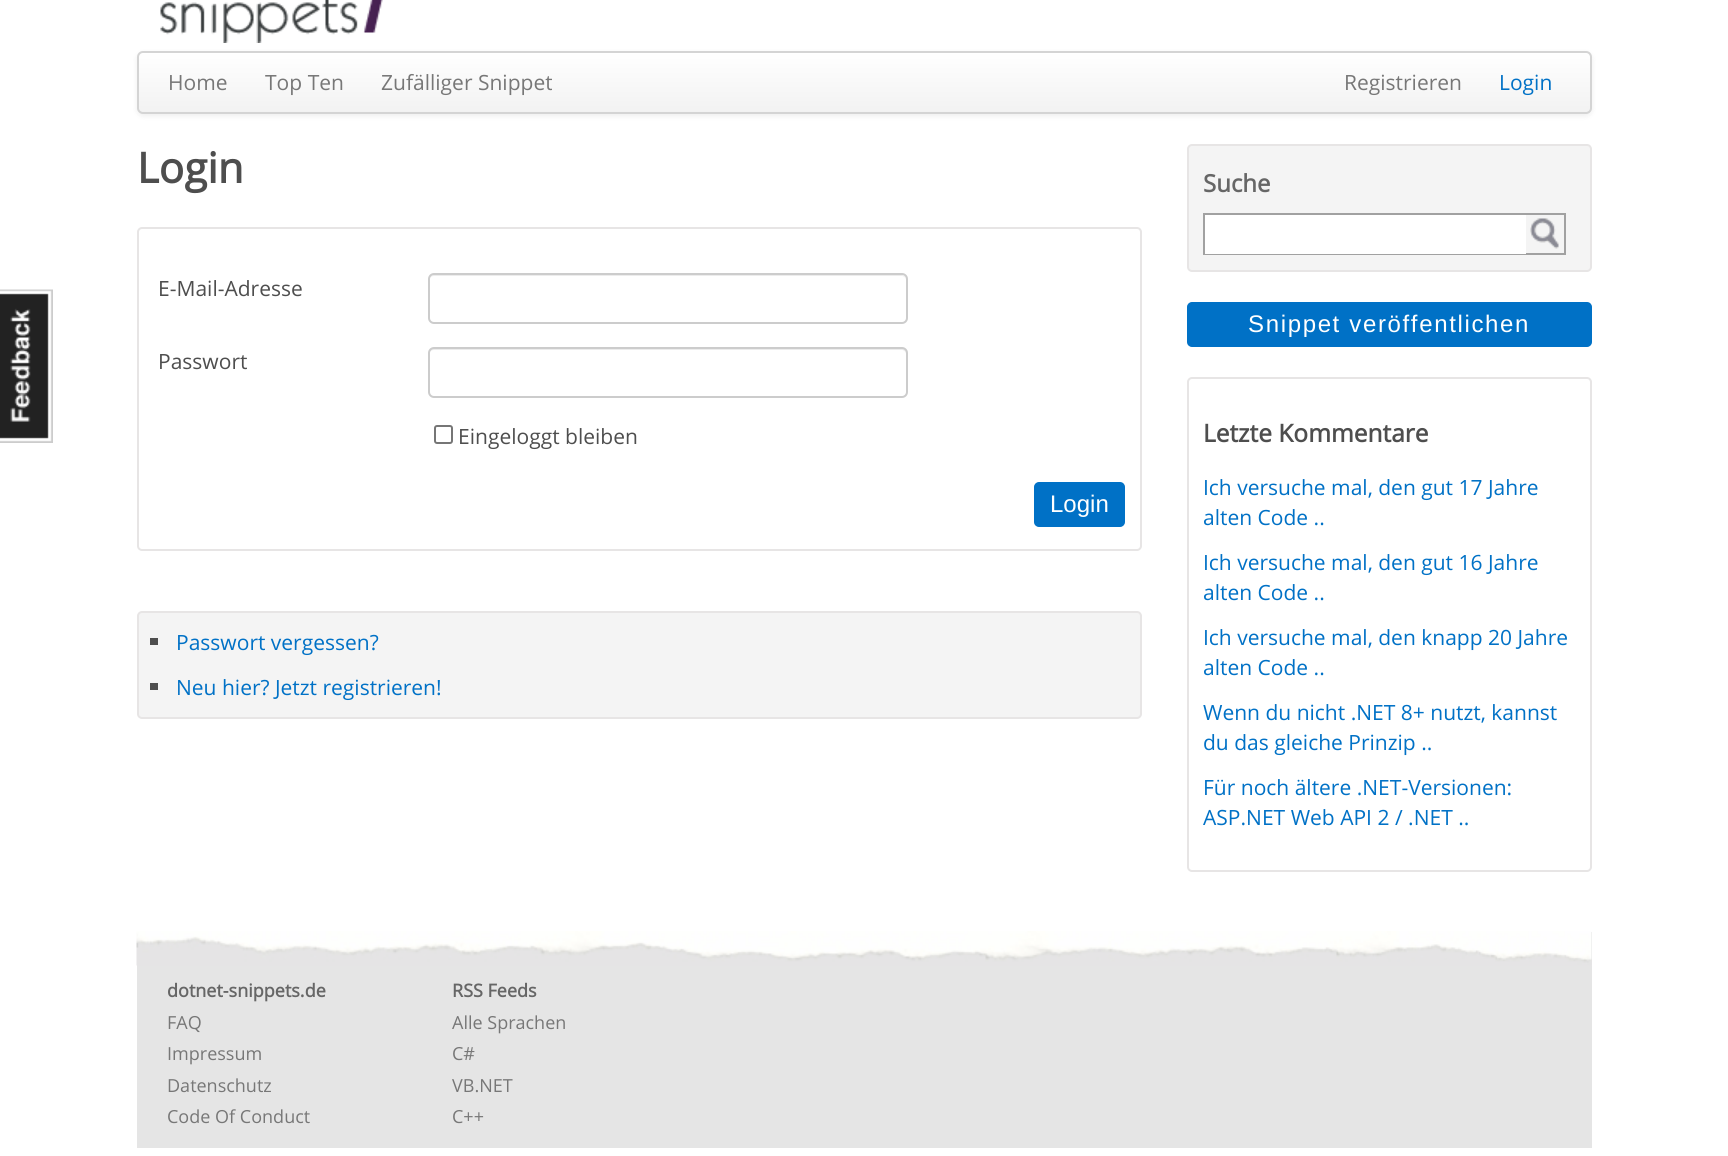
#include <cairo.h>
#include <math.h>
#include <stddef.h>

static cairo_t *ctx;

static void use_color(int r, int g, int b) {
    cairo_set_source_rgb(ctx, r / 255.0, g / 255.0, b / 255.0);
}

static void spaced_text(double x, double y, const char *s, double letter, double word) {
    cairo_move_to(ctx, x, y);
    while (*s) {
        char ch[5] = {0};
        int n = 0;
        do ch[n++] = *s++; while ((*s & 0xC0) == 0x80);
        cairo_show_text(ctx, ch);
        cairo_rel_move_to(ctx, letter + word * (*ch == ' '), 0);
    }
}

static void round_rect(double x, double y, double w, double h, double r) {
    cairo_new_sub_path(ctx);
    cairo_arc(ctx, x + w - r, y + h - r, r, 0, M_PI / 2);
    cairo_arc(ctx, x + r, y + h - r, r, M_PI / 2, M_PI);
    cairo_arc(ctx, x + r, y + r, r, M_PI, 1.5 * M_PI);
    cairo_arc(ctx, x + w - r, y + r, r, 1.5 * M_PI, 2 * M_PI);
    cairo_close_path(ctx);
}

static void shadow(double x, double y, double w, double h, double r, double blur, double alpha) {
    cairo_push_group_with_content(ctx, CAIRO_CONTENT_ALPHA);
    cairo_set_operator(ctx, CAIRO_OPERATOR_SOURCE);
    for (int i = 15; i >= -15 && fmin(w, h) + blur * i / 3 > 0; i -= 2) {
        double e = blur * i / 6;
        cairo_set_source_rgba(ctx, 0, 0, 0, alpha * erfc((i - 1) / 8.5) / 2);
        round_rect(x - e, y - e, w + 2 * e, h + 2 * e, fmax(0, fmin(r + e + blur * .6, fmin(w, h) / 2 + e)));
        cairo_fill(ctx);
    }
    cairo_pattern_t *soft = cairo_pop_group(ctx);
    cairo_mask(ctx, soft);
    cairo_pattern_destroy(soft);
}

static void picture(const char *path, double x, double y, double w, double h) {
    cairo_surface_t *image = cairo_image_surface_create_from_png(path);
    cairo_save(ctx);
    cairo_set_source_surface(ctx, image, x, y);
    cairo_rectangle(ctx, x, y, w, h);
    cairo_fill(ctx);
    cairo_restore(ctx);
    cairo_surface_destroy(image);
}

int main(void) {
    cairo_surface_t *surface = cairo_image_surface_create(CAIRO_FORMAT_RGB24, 1728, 1156);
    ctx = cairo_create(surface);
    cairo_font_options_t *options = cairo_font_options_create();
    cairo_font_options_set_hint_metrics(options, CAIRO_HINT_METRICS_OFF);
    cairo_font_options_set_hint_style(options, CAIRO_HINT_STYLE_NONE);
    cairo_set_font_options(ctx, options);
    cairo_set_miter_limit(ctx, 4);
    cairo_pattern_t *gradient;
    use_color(255, 255, 255);
    cairo_paint(ctx);
    use_color(34, 34, 34);
    cairo_rectangle(ctx, 0, 293, 49, 146);
    cairo_fill(ctx);
    picture("img1.png", 0, 289, 53, 154);
    picture("img2.png", 160, 0, 223, 43);
    use_color(0, 0, 0);
    shadow(137, 53, 1455, 63, 6, 3, 0.07);
    cairo_save(ctx);
    round_rect(137, 51, 1455, 63, 6);
    cairo_clip(ctx);
    gradient = cairo_pattern_create_linear(864, 52, 864, 113);
    cairo_pattern_add_color_stop_rgba(gradient, 0, 1, 1, 1, 1);
    cairo_pattern_add_color_stop_rgba(gradient, 1, 0.949, 0.949, 0.949, 1);
    cairo_set_source(ctx, gradient);
    cairo_pattern_destroy(gradient);
    cairo_rectangle(ctx, 137, 53, 1455, 60);
    cairo_fill(ctx);
    cairo_restore(ctx);
    round_rect(138, 52, 1453, 61, 5);
    use_color(212, 212, 212);
    cairo_stroke(ctx);
    cairo_select_font_face(ctx, "Open Sans", CAIRO_FONT_SLANT_NORMAL, CAIRO_FONT_WEIGHT_NORMAL);
    cairo_set_font_size(ctx, 21);
    use_color(119, 119, 119);
    cairo_move_to(ctx, 168, 90);
    cairo_show_text(ctx, "Home");
    cairo_move_to(ctx, 265, 90);
    cairo_show_text(ctx, "Top Ten");
    cairo_move_to(ctx, 381, 90);
    cairo_show_text(ctx, "Zufälliger Snippet");
    cairo_move_to(ctx, 1344, 90);
    cairo_show_text(ctx, "Registrieren");
    use_color(0, 113, 198);
    cairo_move_to(ctx, 1499, 90);
    cairo_show_text(ctx, "Login");
    cairo_select_font_face(ctx, "Open Sans", CAIRO_FONT_SLANT_NORMAL, CAIRO_FONT_WEIGHT_BOLD);
    cairo_set_font_size(ctx, 42);
    use_color(78, 78, 78);
    cairo_move_to(ctx, 137, 183);
    cairo_show_text(ctx, "Login");
    round_rect(138, 228, 1003, 322, 4);
    use_color(231, 229, 229);
    cairo_stroke(ctx);
    cairo_select_font_face(ctx, "Open Sans", CAIRO_FONT_SLANT_NORMAL, CAIRO_FONT_WEIGHT_NORMAL);
    cairo_set_font_size(ctx, 21);
    use_color(78, 78, 78);
    cairo_move_to(ctx, 158, 296);
    cairo_show_text(ctx, "E-Mail-Adresse");
    use_color(236, 236, 236);
    cairo_new_path(ctx);
    cairo_move_to(ctx, 434, 276);
    cairo_line_to(ctx, 902, 276);
    cairo_curve_to(ctx, 904, 276, 906, 278, 906, 280);
    cairo_curve_to(ctx, 906, 277, 904, 275, 901, 275);
    cairo_line_to(ctx, 434, 275);
    cairo_curve_to(ctx, 431, 275, 429, 277, 429, 280);
    cairo_curve_to(ctx, 429, 278, 431, 276, 434, 276);
    cairo_close_path(ctx);
    cairo_fill(ctx);
    round_rect(429, 274, 478, 49, 5);
    use_color(204, 204, 204);
    cairo_stroke(ctx);
    use_color(78, 78, 78);
    cairo_move_to(ctx, 158, 369);
    cairo_show_text(ctx, "Passwort");
    use_color(236, 236, 236);
    cairo_new_path(ctx);
    cairo_move_to(ctx, 434, 350);
    cairo_line_to(ctx, 902, 350);
    cairo_curve_to(ctx, 904, 350, 906, 352, 906, 354);
    cairo_line_to(ctx, 906, 353);
    cairo_curve_to(ctx, 906, 350, 904, 348, 901, 348);
    cairo_line_to(ctx, 434, 348);
    cairo_curve_to(ctx, 431, 348, 429, 350, 429, 353);
    cairo_line_to(ctx, 429, 354);
    cairo_curve_to(ctx, 429, 352, 431, 350, 434, 350);
    cairo_close_path(ctx);
    cairo_fill(ctx);
    round_rect(429, 348, 478, 49, 5);
    use_color(204, 204, 204);
    cairo_stroke(ctx);
    round_rect(435, 426, 17, 17, 2);
    use_color(118, 118, 118);
    cairo_stroke(ctx);
    use_color(78, 78, 78);
    cairo_move_to(ctx, 458, 444);
    cairo_show_text(ctx, "Eingeloggt bleiben");
    use_color(0, 113, 198);
    round_rect(1035, 483, 89, 43, 4);
    cairo_fill_preserve(ctx);
    cairo_stroke(ctx);
    cairo_select_font_face(ctx, "Liberation Sans", CAIRO_FONT_SLANT_NORMAL, CAIRO_FONT_WEIGHT_NORMAL);
    cairo_set_font_size(ctx, 24);
    use_color(255, 255, 255);
    cairo_move_to(ctx, 1050, 512);
    cairo_show_text(ctx, "Login");
    use_color(244, 244, 244);
    round_rect(138, 612, 1003, 106, 4);
    cairo_fill_preserve(ctx);
    use_color(231, 229, 229);
    cairo_stroke(ctx);
    use_color(78, 78, 78);
    cairo_rectangle(ctx, 150, 638, 8, 7);
    cairo_fill(ctx);
    cairo_select_font_face(ctx, "Open Sans", CAIRO_FONT_SLANT_NORMAL, CAIRO_FONT_WEIGHT_NORMAL);
    cairo_set_font_size(ctx, 21);
    use_color(0, 113, 198);
    cairo_move_to(ctx, 176, 650);
    cairo_show_text(ctx, "Passwort vergessen?");
    use_color(78, 78, 78);
    cairo_rectangle(ctx, 150, 683, 8, 7);
    cairo_fill(ctx);
    use_color(0, 113, 198);
    cairo_move_to(ctx, 176, 695);
    cairo_show_text(ctx, "Neu hier? Jetzt registrieren!");
    use_color(244, 244, 244);
    round_rect(1188, 145, 403, 126, 4);
    cairo_fill_preserve(ctx);
    use_color(231, 229, 229);
    cairo_stroke(ctx);
    cairo_select_font_face(ctx, "Open Sans", CAIRO_FONT_SLANT_NORMAL, CAIRO_FONT_WEIGHT_BOLD);
    cairo_set_font_size(ctx, 24);
    use_color(102, 102, 102);
    cairo_move_to(ctx, 1203, 192);
    cairo_show_text(ctx, "Suche");
    cairo_rectangle(ctx, 1204, 214, 361, 40);
    use_color(161, 161, 161);
    cairo_stroke(ctx);
    use_color(255, 255, 255);
    cairo_rectangle(ctx, 1205, 215, 321, 39);
    cairo_fill(ctx);
    picture("img3.png", 1530, 218, 29, 31);
    use_color(0, 113, 198);
    round_rect(1188, 303, 403, 43, 4);
    cairo_fill_preserve(ctx);
    cairo_stroke(ctx);
    cairo_select_font_face(ctx, "Liberation Sans", CAIRO_FONT_SLANT_NORMAL, CAIRO_FONT_WEIGHT_NORMAL);
    use_color(255, 255, 255);
    spaced_text(1248, 332, "Snippet veröffentlichen", 1.65, 0);
    round_rect(1188, 378, 403, 493, 4);
    use_color(231, 229, 229);
    cairo_stroke(ctx);
    cairo_select_font_face(ctx, "Open Sans", CAIRO_FONT_SLANT_NORMAL, CAIRO_FONT_WEIGHT_BOLD);
    cairo_set_font_size(ctx, 24.5);
    use_color(78, 78, 78);
    cairo_move_to(ctx, 1203, 442);
    cairo_show_text(ctx, "Letzte Kommentare");
    cairo_select_font_face(ctx, "Open Sans", CAIRO_FONT_SLANT_NORMAL, CAIRO_FONT_WEIGHT_NORMAL);
    cairo_set_font_size(ctx, 21);
    use_color(0, 113, 198);
    cairo_move_to(ctx, 1203, 495);
    cairo_show_text(ctx, "Ich versuche mal, den gut 17 Jahre");
    cairo_move_to(ctx, 1203, 525);
    cairo_show_text(ctx, "alten Code ..");
    cairo_move_to(ctx, 1203, 570);
    cairo_show_text(ctx, "Ich versuche mal, den gut 16 Jahre");
    cairo_move_to(ctx, 1203, 600);
    cairo_show_text(ctx, "alten Code ..");
    cairo_move_to(ctx, 1203, 645);
    cairo_show_text(ctx, "Ich versuche mal, den knapp 20 Jahre");
    cairo_move_to(ctx, 1203, 675);
    cairo_show_text(ctx, "alten Code ..");
    cairo_move_to(ctx, 1203, 720);
    cairo_show_text(ctx, "Wenn du nicht .NET 8+ nutzt, kannst");
    cairo_move_to(ctx, 1203, 750);
    cairo_show_text(ctx, "du das gleiche Prinzip ..");
    cairo_move_to(ctx, 1203, 795);
    cairo_show_text(ctx, "Für noch ältere .NET-Versionen:");
    cairo_move_to(ctx, 1203, 825);
    cairo_show_text(ctx, "ASP.NET Web API 2 / .NET ..");
    use_color(229, 229, 229);
    cairo_rectangle(ctx, 137, 932, 1455, 216);
    cairo_fill(ctx);
    picture("img4.png", 136, 931, 1456, 35);
    cairo_select_font_face(ctx, "Open Sans", CAIRO_FONT_SLANT_NORMAL, CAIRO_FONT_WEIGHT_BOLD);
    cairo_set_font_size(ctx, 18);
    use_color(102, 102, 102);
    cairo_move_to(ctx, 167, 997);
    cairo_show_text(ctx, "dotnet-snippets.de");
    cairo_select_font_face(ctx, "Open Sans", CAIRO_FONT_SLANT_NORMAL, CAIRO_FONT_WEIGHT_NORMAL);
    use_color(119, 119, 119);
    cairo_move_to(ctx, 167, 1029);
    cairo_show_text(ctx, "FAQ");
    cairo_move_to(ctx, 167, 1060);
    cairo_show_text(ctx, "Impressum");
    cairo_move_to(ctx, 167, 1092);
    cairo_show_text(ctx, "Datenschutz");
    cairo_move_to(ctx, 167, 1123);
    cairo_show_text(ctx, "Code Of Conduct");
    cairo_select_font_face(ctx, "Open Sans", CAIRO_FONT_SLANT_NORMAL, CAIRO_FONT_WEIGHT_BOLD);
    use_color(102, 102, 102);
    cairo_move_to(ctx, 452, 997);
    cairo_show_text(ctx, "RSS Feeds");
    cairo_select_font_face(ctx, "Open Sans", CAIRO_FONT_SLANT_NORMAL, CAIRO_FONT_WEIGHT_NORMAL);
    use_color(119, 119, 119);
    cairo_move_to(ctx, 452, 1029);
    cairo_show_text(ctx, "Alle Sprachen");
    cairo_move_to(ctx, 452, 1060);
    cairo_show_text(ctx, "C#");
    cairo_move_to(ctx, 452, 1092);
    cairo_show_text(ctx, "VB.NET");
    cairo_move_to(ctx, 452, 1123);
    cairo_show_text(ctx, "C++");
    cairo_surface_write_to_png(surface, "result.png");
    cairo_font_options_destroy(options);
    cairo_destroy(ctx);
    cairo_surface_destroy(surface);
    return 0;
}
